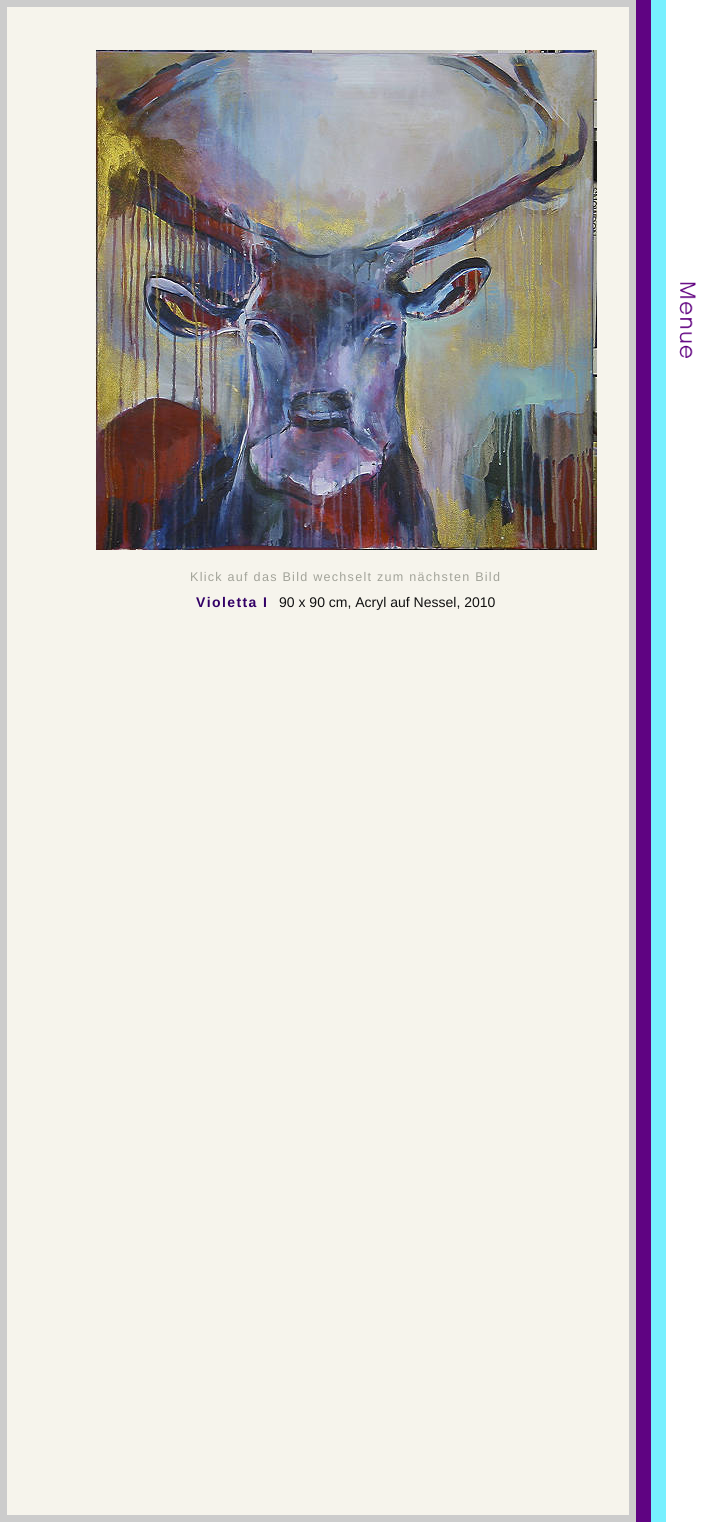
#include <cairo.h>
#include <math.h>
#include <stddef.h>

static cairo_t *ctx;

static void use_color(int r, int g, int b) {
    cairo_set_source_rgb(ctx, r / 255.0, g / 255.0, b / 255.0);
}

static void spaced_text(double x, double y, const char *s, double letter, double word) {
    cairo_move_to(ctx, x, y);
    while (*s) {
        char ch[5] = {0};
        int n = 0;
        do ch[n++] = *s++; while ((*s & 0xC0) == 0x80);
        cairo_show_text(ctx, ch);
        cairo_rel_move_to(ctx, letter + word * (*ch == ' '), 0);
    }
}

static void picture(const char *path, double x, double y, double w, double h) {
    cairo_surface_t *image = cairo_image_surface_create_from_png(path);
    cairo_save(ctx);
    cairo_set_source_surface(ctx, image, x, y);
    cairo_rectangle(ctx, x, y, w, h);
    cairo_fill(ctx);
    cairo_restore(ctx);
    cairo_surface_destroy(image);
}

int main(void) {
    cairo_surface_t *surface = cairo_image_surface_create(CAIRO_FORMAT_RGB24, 719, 1522);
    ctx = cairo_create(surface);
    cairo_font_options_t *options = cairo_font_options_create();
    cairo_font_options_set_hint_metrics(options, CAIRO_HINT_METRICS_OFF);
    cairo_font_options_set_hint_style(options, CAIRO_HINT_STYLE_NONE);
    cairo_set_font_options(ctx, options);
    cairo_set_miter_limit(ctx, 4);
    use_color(246, 244, 236);
    cairo_paint(ctx);
    use_color(204, 204, 204);
    cairo_rectangle(ctx, 0, 0, 7, 1522);
    cairo_fill(ctx);
    cairo_rectangle(ctx, 0, 0, 629, 7);
    cairo_fill(ctx);
    use_color(255, 255, 255);
    cairo_rectangle(ctx, 666, 0, 53, 1522);
    cairo_fill(ctx);
    picture("img1.png", 629, 0, 7, 1522);
    use_color(95, 3, 130);
    cairo_rectangle(ctx, 636, 0, 15, 1522);
    cairo_fill(ctx);
    use_color(119, 240, 255);
    cairo_rectangle(ctx, 651, 0, 15, 1522);
    cairo_fill(ctx);
    picture("img2.png", 679, 282, 17, 76);
    picture("img3.png", 96, 50, 501, 500);
    cairo_select_font_face(ctx, "Liberation Sans", CAIRO_FONT_SLANT_NORMAL, CAIRO_FONT_WEIGHT_NORMAL);
    cairo_set_font_size(ctx, 12.6);
    use_color(162, 163, 153);
    spaced_text(190, 581, "Klick auf das Bild wechselt zum nächsten Bild", 1.25, 0);
    cairo_select_font_face(ctx, "Liberation Sans", CAIRO_FONT_SLANT_NORMAL, CAIRO_FONT_WEIGHT_BOLD);
    cairo_set_font_size(ctx, 14);
    use_color(51, 0, 102);
    spaced_text(196, 607, "Violetta I", 1.4, 0);
    cairo_select_font_face(ctx, "Liberation Sans", CAIRO_FONT_SLANT_NORMAL, CAIRO_FONT_WEIGHT_NORMAL);
    use_color(17, 17, 17);
    cairo_move_to(ctx, 279, 607);
    cairo_show_text(ctx, "90 x 90 cm, Acryl auf Nessel, 2010");
    use_color(204, 204, 204);
    cairo_rectangle(ctx, 0, 1515, 629, 7);
    cairo_fill(ctx);
    cairo_surface_write_to_png(surface, "result.png");
    cairo_font_options_destroy(options);
    cairo_destroy(ctx);
    cairo_surface_destroy(surface);
    return 0;
}
